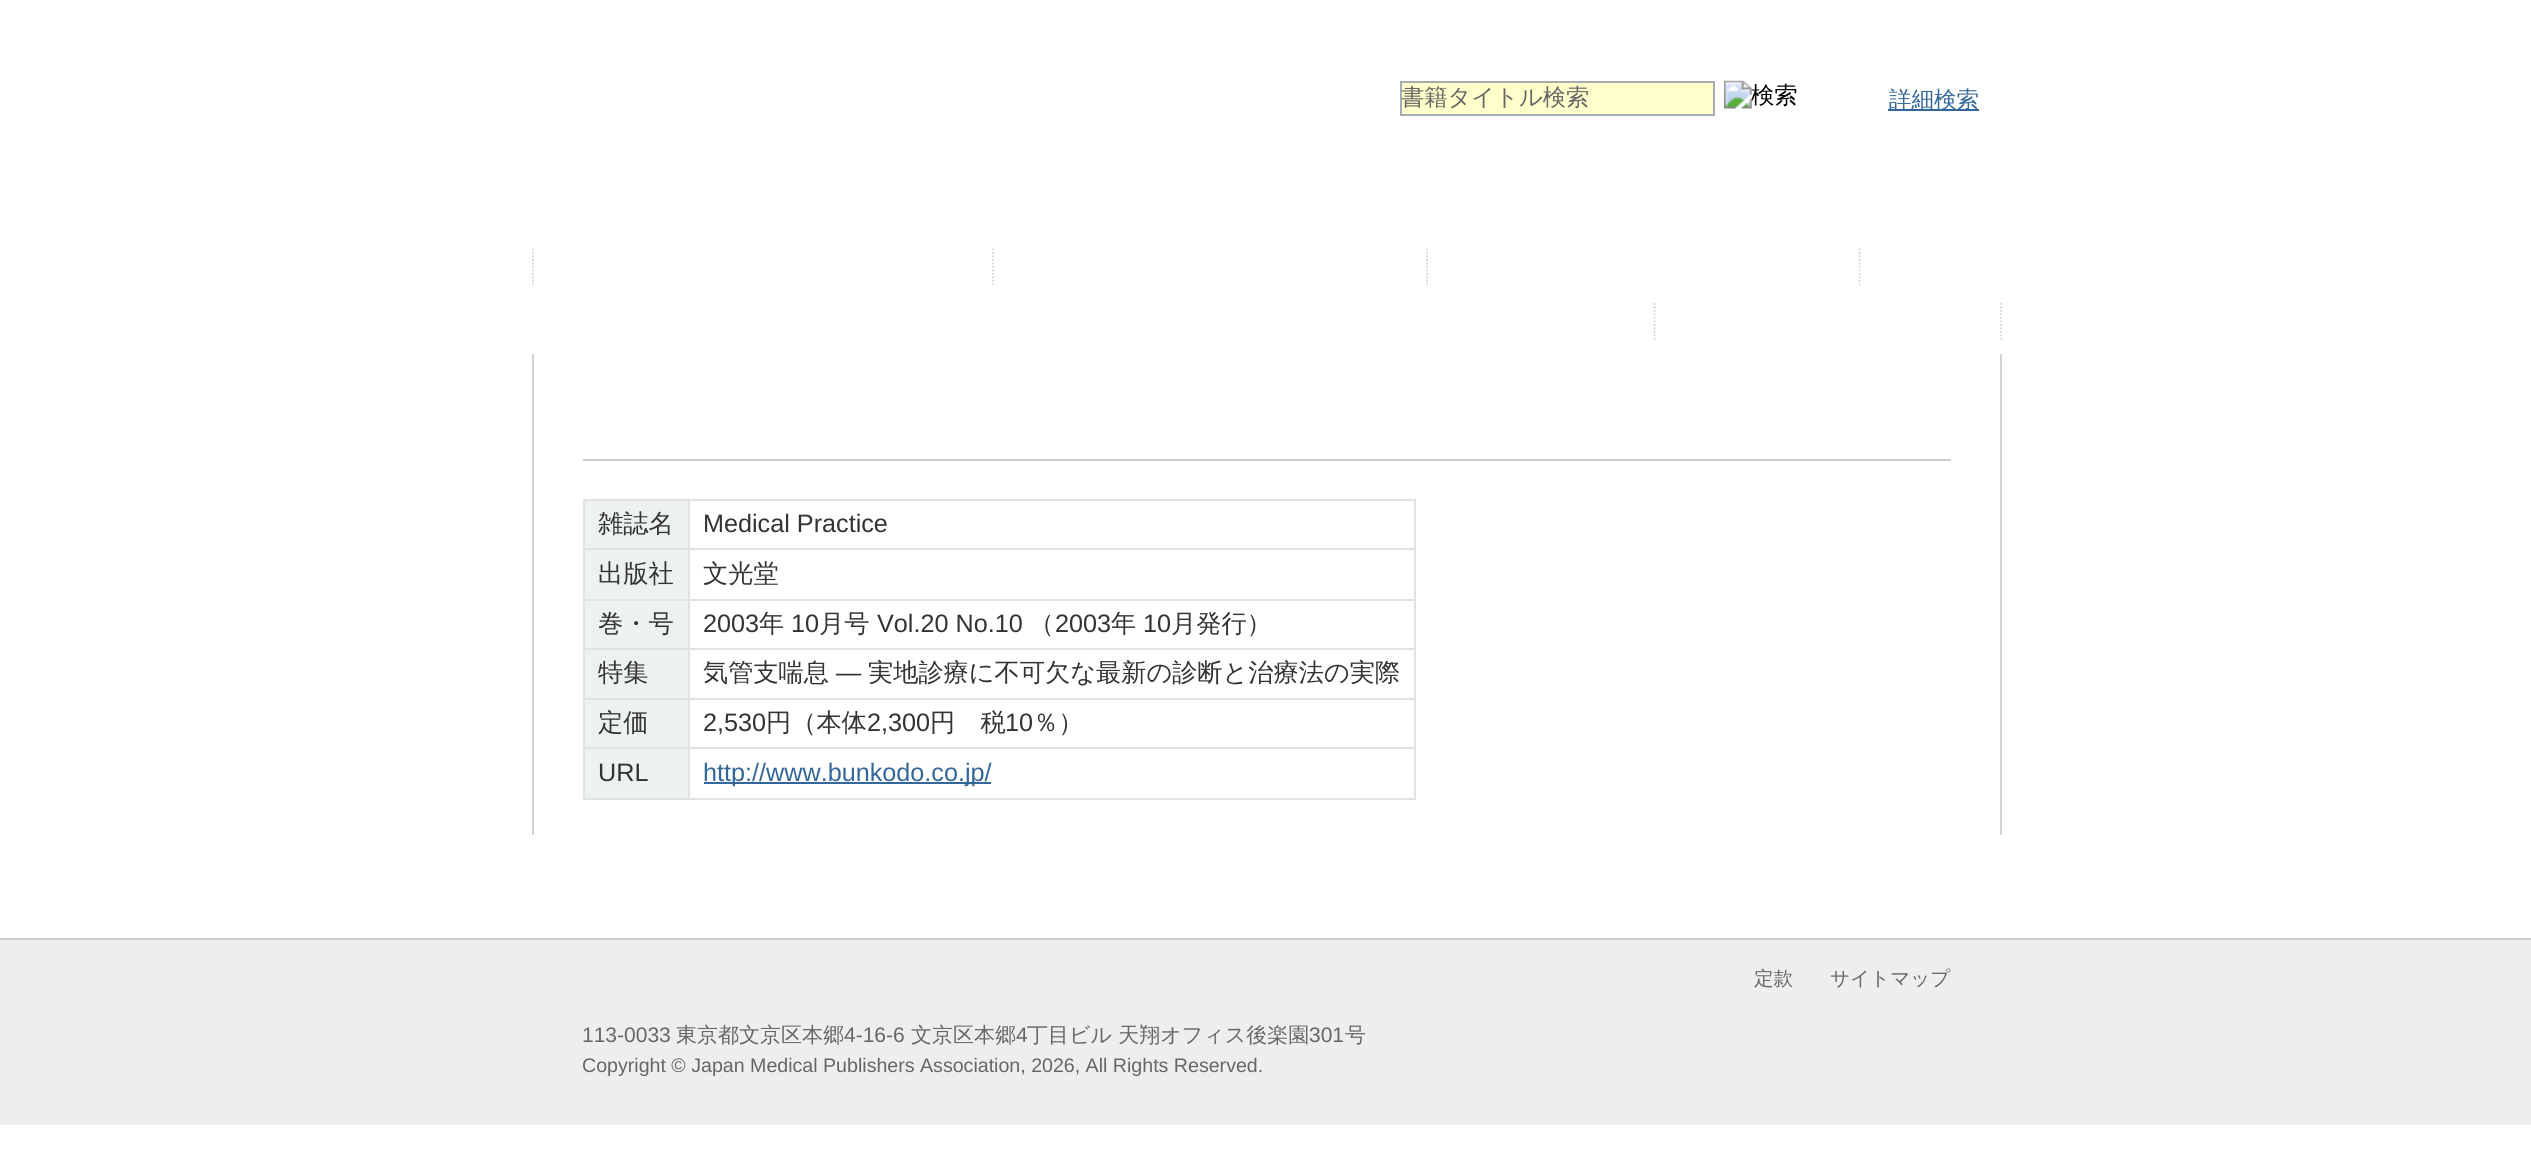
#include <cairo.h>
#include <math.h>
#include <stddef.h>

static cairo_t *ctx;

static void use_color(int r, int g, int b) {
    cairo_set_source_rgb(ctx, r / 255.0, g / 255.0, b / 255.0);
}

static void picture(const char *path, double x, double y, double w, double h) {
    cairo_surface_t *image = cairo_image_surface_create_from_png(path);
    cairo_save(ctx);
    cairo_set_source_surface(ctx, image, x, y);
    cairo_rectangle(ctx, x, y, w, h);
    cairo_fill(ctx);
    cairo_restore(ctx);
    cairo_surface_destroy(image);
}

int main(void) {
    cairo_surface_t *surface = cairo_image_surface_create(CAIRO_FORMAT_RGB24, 2531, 1161);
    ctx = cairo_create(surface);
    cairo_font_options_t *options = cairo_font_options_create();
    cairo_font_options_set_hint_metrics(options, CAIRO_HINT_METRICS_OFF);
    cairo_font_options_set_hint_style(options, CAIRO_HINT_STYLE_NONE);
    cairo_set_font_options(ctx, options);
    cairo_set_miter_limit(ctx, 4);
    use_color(255, 255, 255);
    cairo_paint(ctx);
    use_color(255, 255, 203);
    cairo_rectangle(ctx, 1401, 82, 313, 33);
    cairo_fill_preserve(ctx);
    use_color(165, 172, 178);
    cairo_stroke(ctx);
    cairo_save(ctx);
    cairo_rectangle(ctx, 1402, 82, 311, 32);
    cairo_clip(ctx);
    cairo_select_font_face(ctx, "WenQuanYi Zen Hei Medium", CAIRO_FONT_SLANT_NORMAL, CAIRO_FONT_WEIGHT_NORMAL);
    cairo_set_font_size(ctx, 23.25);
    use_color(102, 102, 102);
    cairo_move_to(ctx, 1401, 105);
    cairo_show_text(ctx, "書籍タイトル検索");
    cairo_restore(ctx);
    picture("img1.png", 1723, 80, 74, 29);
    use_color(51, 102, 153);
    cairo_rectangle(ctx, 1888, 109, 91, 2);
    cairo_fill(ctx);
    cairo_select_font_face(ctx, "WenQuanYi Zen Hei Medium", CAIRO_FONT_SLANT_NORMAL, CAIRO_FONT_WEIGHT_NORMAL);
    cairo_set_font_size(ctx, 22.5);
    cairo_move_to(ctx, 1889, 107);
    cairo_show_text(ctx, "詳細検索");
    cairo_new_path(ctx);
    cairo_move_to(ctx, 533, 248.5);
    cairo_line_to(ctx, 533, 285);
    use_color(213, 211, 211);
    cairo_set_line_width(ctx, 1.8);
    cairo_set_dash(ctx, (double[]){1.75, 1.75}, 2, 0);
    cairo_stroke(ctx);
    cairo_new_path(ctx);
    cairo_move_to(ctx, 993, 248.5);
    cairo_line_to(ctx, 993, 285);
    cairo_stroke(ctx);
    cairo_new_path(ctx);
    cairo_move_to(ctx, 1859.5, 248.5);
    cairo_line_to(ctx, 1859.5, 285);
    cairo_stroke(ctx);
    cairo_new_path(ctx);
    cairo_move_to(ctx, 1427, 248.5);
    cairo_line_to(ctx, 1427, 285);
    cairo_stroke(ctx);
    cairo_new_path(ctx);
    cairo_move_to(ctx, 2001, 303);
    cairo_line_to(ctx, 2001, 339.5);
    cairo_stroke(ctx);
    cairo_new_path(ctx);
    cairo_move_to(ctx, 1654.5, 303);
    cairo_line_to(ctx, 1654.5, 339.5);
    cairo_stroke(ctx);
    cairo_rectangle(ctx, 2000, 354, 2, 481);
    cairo_fill(ctx);
    cairo_rectangle(ctx, 532, 354, 2, 481);
    cairo_fill(ctx);
    use_color(204, 204, 204);
    cairo_rectangle(ctx, 583, 459, 1368, 2);
    cairo_fill(ctx);
    use_color(237, 241, 242);
    cairo_rectangle(ctx, 585, 501, 103, 47);
    cairo_fill(ctx);
    use_color(226, 226, 226);
    cairo_rectangle(ctx, 688, 499, 728, 2);
    cairo_fill(ctx);
    cairo_rectangle(ctx, 688, 548, 728, 2);
    cairo_fill(ctx);
    cairo_rectangle(ctx, 688, 599, 728, 2);
    cairo_fill(ctx);
    cairo_rectangle(ctx, 688, 648, 728, 2);
    cairo_fill(ctx);
    cairo_rectangle(ctx, 688, 698, 728, 2);
    cairo_fill(ctx);
    cairo_rectangle(ctx, 688, 747, 728, 2);
    cairo_fill(ctx);
    cairo_rectangle(ctx, 1414, 747, 2, 53);
    cairo_fill(ctx);
    cairo_rectangle(ctx, 688, 798, 728, 2);
    cairo_fill(ctx);
    cairo_rectangle(ctx, 688, 747, 2, 53);
    cairo_fill(ctx);
    cairo_rectangle(ctx, 583, 747, 107, 2);
    cairo_fill(ctx);
    cairo_rectangle(ctx, 688, 698, 2, 51);
    cairo_fill(ctx);
    cairo_rectangle(ctx, 583, 698, 107, 2);
    cairo_fill(ctx);
    cairo_rectangle(ctx, 688, 648, 2, 52);
    cairo_fill(ctx);
    cairo_rectangle(ctx, 583, 648, 107, 2);
    cairo_fill(ctx);
    cairo_rectangle(ctx, 688, 599, 2, 50);
    cairo_fill(ctx);
    cairo_rectangle(ctx, 583, 599, 107, 2);
    cairo_fill(ctx);
    cairo_rectangle(ctx, 688, 548, 2, 52);
    cairo_fill(ctx);
    cairo_rectangle(ctx, 583, 548, 107, 2);
    cairo_fill(ctx);
    cairo_rectangle(ctx, 688, 499, 2, 51);
    cairo_fill(ctx);
    cairo_rectangle(ctx, 583, 499, 107, 2);
    cairo_fill(ctx);
    cairo_rectangle(ctx, 583, 798, 107, 2);
    cairo_fill(ctx);
    cairo_rectangle(ctx, 583, 747, 2, 53);
    cairo_fill(ctx);
    cairo_rectangle(ctx, 583, 698, 2, 51);
    cairo_fill(ctx);
    cairo_rectangle(ctx, 583, 648, 2, 52);
    cairo_fill(ctx);
    cairo_rectangle(ctx, 583, 599, 2, 50);
    cairo_fill(ctx);
    cairo_rectangle(ctx, 583, 548, 2, 52);
    cairo_fill(ctx);
    cairo_rectangle(ctx, 583, 499, 2, 51);
    cairo_fill(ctx);
    cairo_set_font_size(ctx, 25.2);
    use_color(51, 51, 51);
    cairo_move_to(ctx, 598, 532);
    cairo_show_text(ctx, "雑誌名");
    use_color(226, 226, 226);
    cairo_rectangle(ctx, 1414, 698, 2, 51);
    cairo_fill(ctx);
    cairo_rectangle(ctx, 1414, 648, 2, 52);
    cairo_fill(ctx);
    cairo_rectangle(ctx, 1414, 599, 2, 50);
    cairo_fill(ctx);
    cairo_rectangle(ctx, 1414, 548, 2, 52);
    cairo_fill(ctx);
    cairo_rectangle(ctx, 1414, 499, 2, 51);
    cairo_fill(ctx);
    cairo_select_font_face(ctx, "Liberation Sans", CAIRO_FONT_SLANT_NORMAL, CAIRO_FONT_WEIGHT_NORMAL);
    use_color(51, 51, 51);
    cairo_move_to(ctx, 703, 532);
    cairo_show_text(ctx, "Medical Practice");
    use_color(237, 241, 242);
    cairo_rectangle(ctx, 585, 550, 103, 49);
    cairo_fill(ctx);
    cairo_select_font_face(ctx, "WenQuanYi Zen Hei Medium", CAIRO_FONT_SLANT_NORMAL, CAIRO_FONT_WEIGHT_NORMAL);
    use_color(51, 51, 51);
    cairo_move_to(ctx, 598, 582);
    cairo_show_text(ctx, "出版社");
    cairo_move_to(ctx, 703, 582);
    cairo_show_text(ctx, "文光堂");
    use_color(237, 241, 242);
    cairo_rectangle(ctx, 585, 601, 103, 47);
    cairo_fill(ctx);
    use_color(51, 51, 51);
    cairo_move_to(ctx, 598, 632);
    cairo_show_text(ctx, "巻・号");
    cairo_select_font_face(ctx, "Liberation Sans", CAIRO_FONT_SLANT_NORMAL, CAIRO_FONT_WEIGHT_NORMAL);
    cairo_move_to(ctx, 703, 632);
    cairo_show_text(ctx, "2003");
    cairo_select_font_face(ctx, "WenQuanYi Zen Hei Medium", CAIRO_FONT_SLANT_NORMAL, CAIRO_FONT_WEIGHT_NORMAL);
    cairo_move_to(ctx, 759, 632);
    cairo_show_text(ctx, "年");
    cairo_select_font_face(ctx, "Liberation Sans", CAIRO_FONT_SLANT_NORMAL, CAIRO_FONT_WEIGHT_NORMAL);
    cairo_move_to(ctx, 791, 632);
    cairo_show_text(ctx, "10");
    cairo_select_font_face(ctx, "WenQuanYi Zen Hei Medium", CAIRO_FONT_SLANT_NORMAL, CAIRO_FONT_WEIGHT_NORMAL);
    cairo_move_to(ctx, 819, 632);
    cairo_show_text(ctx, "月号");
    cairo_select_font_face(ctx, "Liberation Sans", CAIRO_FONT_SLANT_NORMAL, CAIRO_FONT_WEIGHT_NORMAL);
    cairo_move_to(ctx, 877, 632);
    cairo_show_text(ctx, "Vol.20 No.10");
    cairo_select_font_face(ctx, "WenQuanYi Zen Hei Medium", CAIRO_FONT_SLANT_NORMAL, CAIRO_FONT_WEIGHT_NORMAL);
    cairo_move_to(ctx, 1029, 632);
    cairo_show_text(ctx, "（");
    cairo_select_font_face(ctx, "Liberation Sans", CAIRO_FONT_SLANT_NORMAL, CAIRO_FONT_WEIGHT_NORMAL);
    cairo_move_to(ctx, 1055, 632);
    cairo_show_text(ctx, "2003");
    cairo_select_font_face(ctx, "WenQuanYi Zen Hei Medium", CAIRO_FONT_SLANT_NORMAL, CAIRO_FONT_WEIGHT_NORMAL);
    cairo_move_to(ctx, 1111, 632);
    cairo_show_text(ctx, "年");
    cairo_select_font_face(ctx, "Liberation Sans", CAIRO_FONT_SLANT_NORMAL, CAIRO_FONT_WEIGHT_NORMAL);
    cairo_move_to(ctx, 1143, 632);
    cairo_show_text(ctx, "10");
    cairo_select_font_face(ctx, "WenQuanYi Zen Hei Medium", CAIRO_FONT_SLANT_NORMAL, CAIRO_FONT_WEIGHT_NORMAL);
    cairo_move_to(ctx, 1171, 632);
    cairo_show_text(ctx, "月発行）");
    use_color(237, 241, 242);
    cairo_rectangle(ctx, 585, 650, 103, 48);
    cairo_fill(ctx);
    use_color(51, 51, 51);
    cairo_move_to(ctx, 598, 681);
    cairo_show_text(ctx, "特集");
    cairo_move_to(ctx, 703, 681);
    cairo_show_text(ctx, "気管支喘息");
    cairo_select_font_face(ctx, "Liberation Sans", CAIRO_FONT_SLANT_NORMAL, CAIRO_FONT_WEIGHT_NORMAL);
    cairo_move_to(ctx, 836, 681);
    cairo_show_text(ctx, "―");
    cairo_select_font_face(ctx, "WenQuanYi Zen Hei Medium", CAIRO_FONT_SLANT_NORMAL, CAIRO_FONT_WEIGHT_NORMAL);
    cairo_move_to(ctx, 868, 681);
    cairo_show_text(ctx, "実地診療に不可欠な最新の診断と治療法の実際");
    use_color(237, 241, 242);
    cairo_rectangle(ctx, 585, 700, 103, 47);
    cairo_fill(ctx);
    use_color(51, 51, 51);
    cairo_move_to(ctx, 598, 731);
    cairo_show_text(ctx, "定価");
    cairo_select_font_face(ctx, "Liberation Sans", CAIRO_FONT_SLANT_NORMAL, CAIRO_FONT_WEIGHT_NORMAL);
    cairo_move_to(ctx, 703, 731);
    cairo_show_text(ctx, "2,530");
    cairo_select_font_face(ctx, "WenQuanYi Zen Hei Medium", CAIRO_FONT_SLANT_NORMAL, CAIRO_FONT_WEIGHT_NORMAL);
    cairo_move_to(ctx, 766, 731);
    cairo_show_text(ctx, "円（本体");
    cairo_select_font_face(ctx, "Liberation Sans", CAIRO_FONT_SLANT_NORMAL, CAIRO_FONT_WEIGHT_NORMAL);
    cairo_move_to(ctx, 867, 731);
    cairo_show_text(ctx, "2,300");
    cairo_select_font_face(ctx, "WenQuanYi Zen Hei Medium", CAIRO_FONT_SLANT_NORMAL, CAIRO_FONT_WEIGHT_NORMAL);
    cairo_move_to(ctx, 930, 731);
    cairo_show_text(ctx, "円　税");
    cairo_select_font_face(ctx, "Liberation Sans", CAIRO_FONT_SLANT_NORMAL, CAIRO_FONT_WEIGHT_NORMAL);
    cairo_move_to(ctx, 1005, 731);
    cairo_show_text(ctx, "10");
    cairo_select_font_face(ctx, "WenQuanYi Zen Hei Medium", CAIRO_FONT_SLANT_NORMAL, CAIRO_FONT_WEIGHT_NORMAL);
    cairo_move_to(ctx, 1033, 731);
    cairo_show_text(ctx, "％）");
    use_color(237, 241, 242);
    cairo_rectangle(ctx, 585, 749, 103, 49);
    cairo_fill(ctx);
    cairo_select_font_face(ctx, "Liberation Sans", CAIRO_FONT_SLANT_NORMAL, CAIRO_FONT_WEIGHT_NORMAL);
    use_color(51, 51, 51);
    cairo_move_to(ctx, 598, 781);
    cairo_show_text(ctx, "URL");
    use_color(51, 102, 153);
    cairo_rectangle(ctx, 704, 782, 287, 2);
    cairo_fill(ctx);
    cairo_move_to(ctx, 703, 781);
    cairo_show_text(ctx, "http://www.bunkodo.co.jp/");
    use_color(238, 238, 238);
    cairo_rectangle(ctx, 0, 940, 2531, 185);
    cairo_fill(ctx);
    use_color(204, 204, 204);
    cairo_rectangle(ctx, 0, 938, 2531, 2);
    cairo_fill(ctx);
    cairo_select_font_face(ctx, "WenQuanYi Zen Hei Medium", CAIRO_FONT_SLANT_NORMAL, CAIRO_FONT_WEIGHT_NORMAL);
    cairo_set_font_size(ctx, 19.6);
    use_color(102, 102, 102);
    cairo_move_to(ctx, 1754, 985);
    cairo_show_text(ctx, "定款");
    cairo_move_to(ctx, 1830, 985);
    cairo_show_text(ctx, "サイトマップ");
    cairo_select_font_face(ctx, "Liberation Sans", CAIRO_FONT_SLANT_NORMAL, CAIRO_FONT_WEIGHT_NORMAL);
    cairo_set_font_size(ctx, 21);
    cairo_move_to(ctx, 582, 1042);
    cairo_show_text(ctx, "113-0033");
    cairo_select_font_face(ctx, "WenQuanYi Zen Hei Medium", CAIRO_FONT_SLANT_NORMAL, CAIRO_FONT_WEIGHT_NORMAL);
    cairo_move_to(ctx, 676, 1042);
    cairo_show_text(ctx, "東京都文京区本郷");
    cairo_select_font_face(ctx, "Liberation Sans", CAIRO_FONT_SLANT_NORMAL, CAIRO_FONT_WEIGHT_NORMAL);
    cairo_move_to(ctx, 844, 1042);
    cairo_show_text(ctx, "4-16-6");
    cairo_select_font_face(ctx, "WenQuanYi Zen Hei Medium", CAIRO_FONT_SLANT_NORMAL, CAIRO_FONT_WEIGHT_NORMAL);
    cairo_move_to(ctx, 911, 1042);
    cairo_show_text(ctx, "文京区本郷");
    cairo_select_font_face(ctx, "Liberation Sans", CAIRO_FONT_SLANT_NORMAL, CAIRO_FONT_WEIGHT_NORMAL);
    cairo_move_to(ctx, 1016, 1042);
    cairo_show_text(ctx, "4");
    cairo_select_font_face(ctx, "WenQuanYi Zen Hei Medium", CAIRO_FONT_SLANT_NORMAL, CAIRO_FONT_WEIGHT_NORMAL);
    cairo_move_to(ctx, 1027, 1042);
    cairo_show_text(ctx, "丁目ビル 天翔オフィス後楽園");
    cairo_select_font_face(ctx, "Liberation Sans", CAIRO_FONT_SLANT_NORMAL, CAIRO_FONT_WEIGHT_NORMAL);
    cairo_move_to(ctx, 1309, 1042);
    cairo_show_text(ctx, "301");
    cairo_select_font_face(ctx, "WenQuanYi Zen Hei Medium", CAIRO_FONT_SLANT_NORMAL, CAIRO_FONT_WEIGHT_NORMAL);
    cairo_move_to(ctx, 1345, 1042);
    cairo_show_text(ctx, "号");
    cairo_select_font_face(ctx, "Liberation Sans", CAIRO_FONT_SLANT_NORMAL, CAIRO_FONT_WEIGHT_NORMAL);
    cairo_set_font_size(ctx, 19.6);
    cairo_move_to(ctx, 582, 1072);
    cairo_show_text(ctx, "Copyright © Japan Medical Publishers Association, 2026, All Rights Reserved.");
    cairo_surface_write_to_png(surface, "result.png");
    cairo_font_options_destroy(options);
    cairo_destroy(ctx);
    cairo_surface_destroy(surface);
    return 0;
}
